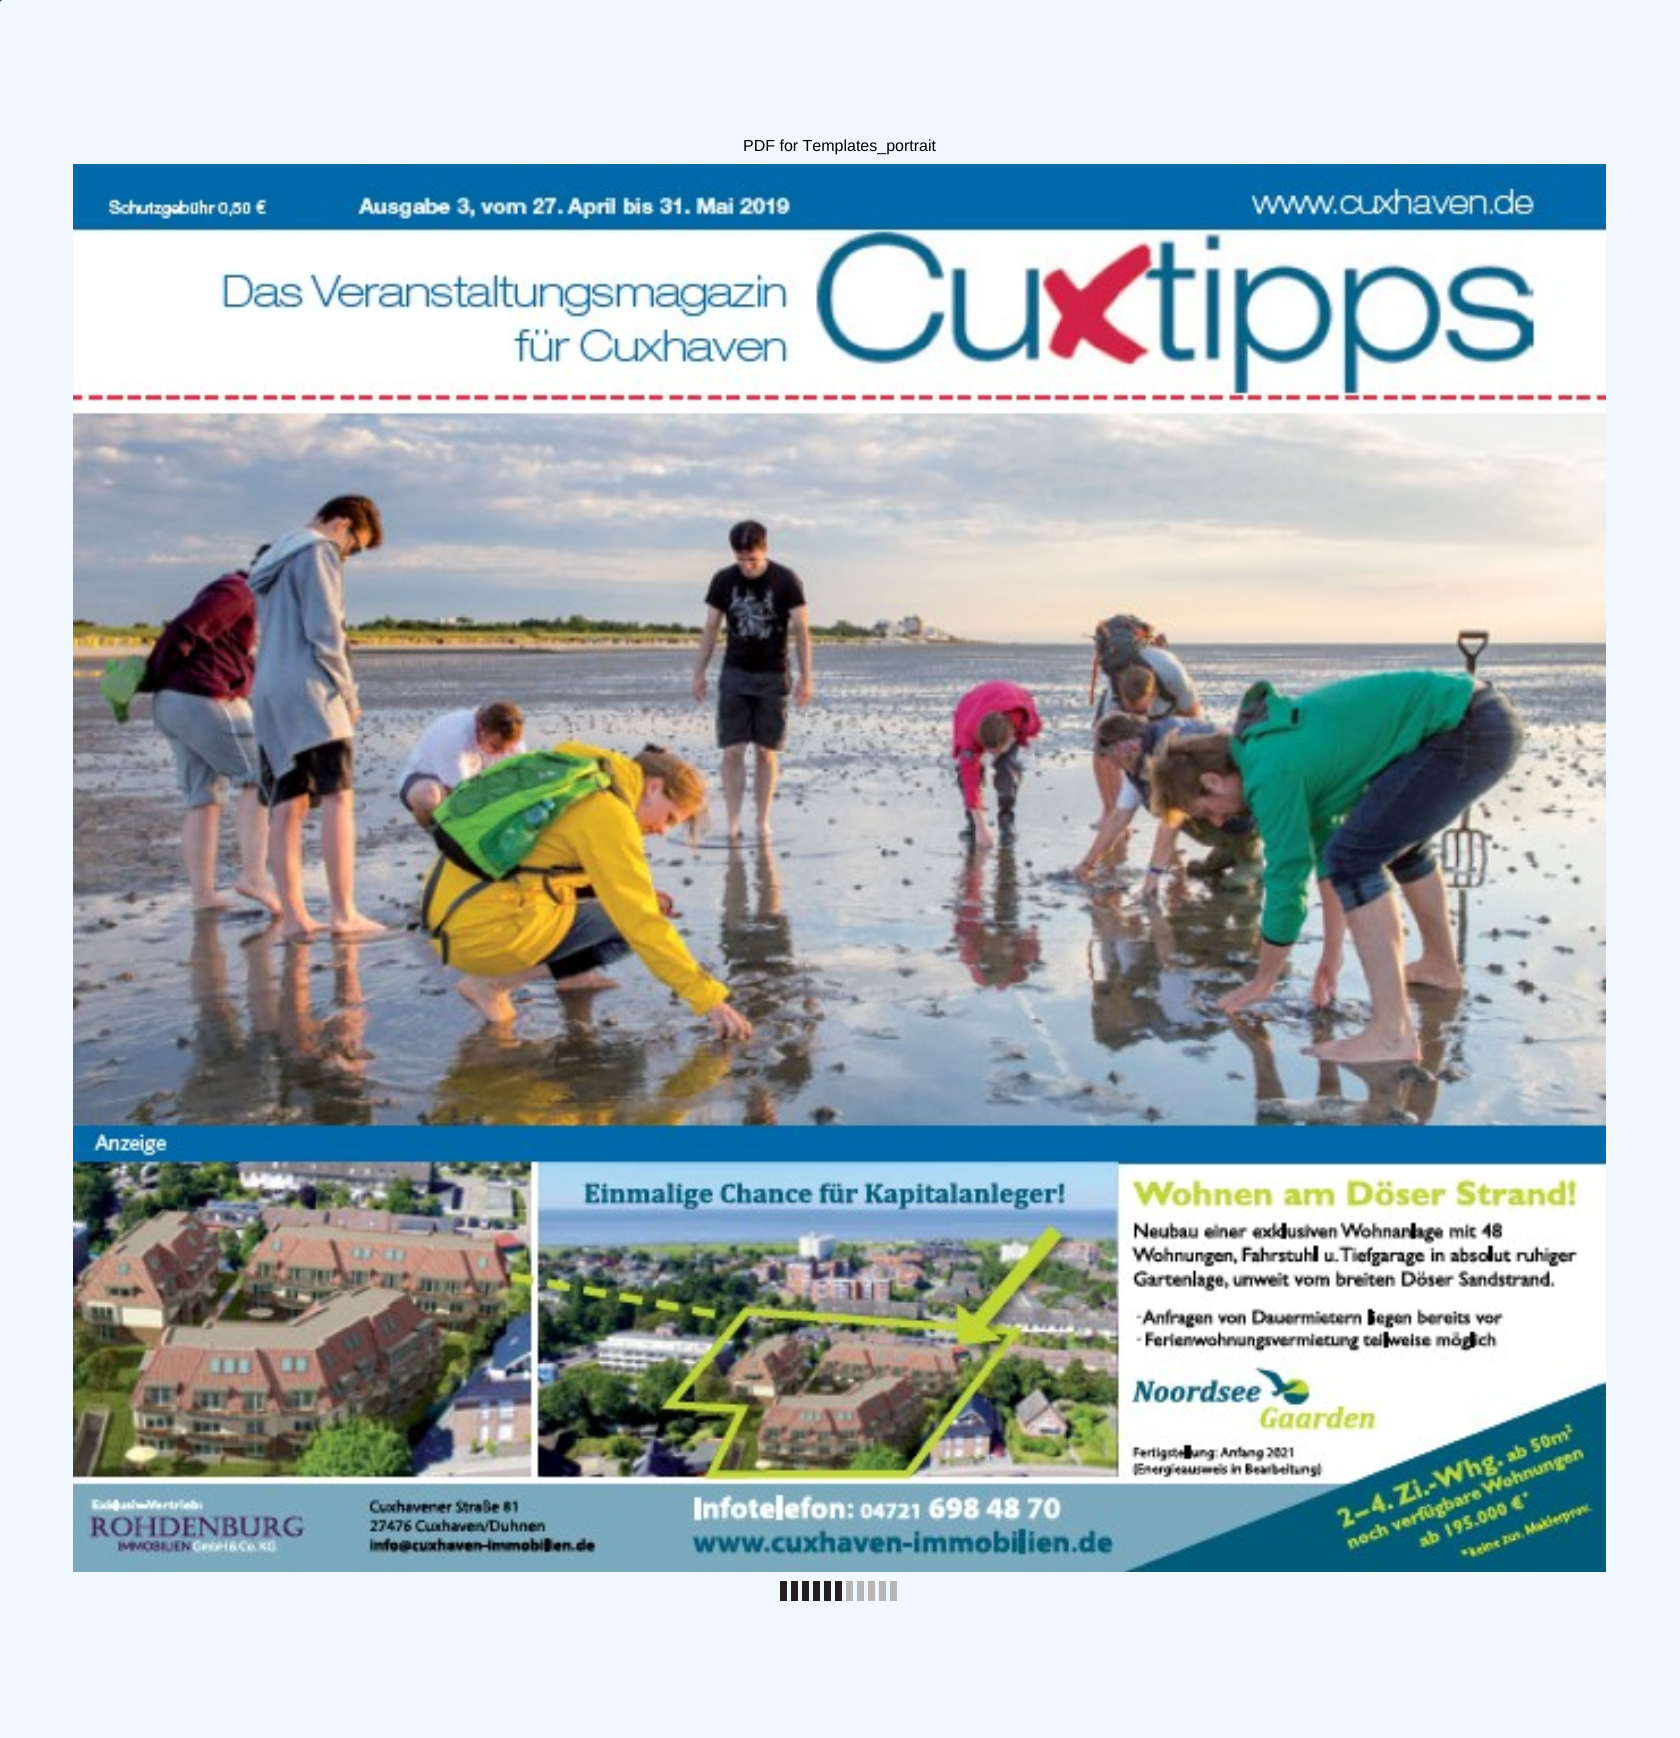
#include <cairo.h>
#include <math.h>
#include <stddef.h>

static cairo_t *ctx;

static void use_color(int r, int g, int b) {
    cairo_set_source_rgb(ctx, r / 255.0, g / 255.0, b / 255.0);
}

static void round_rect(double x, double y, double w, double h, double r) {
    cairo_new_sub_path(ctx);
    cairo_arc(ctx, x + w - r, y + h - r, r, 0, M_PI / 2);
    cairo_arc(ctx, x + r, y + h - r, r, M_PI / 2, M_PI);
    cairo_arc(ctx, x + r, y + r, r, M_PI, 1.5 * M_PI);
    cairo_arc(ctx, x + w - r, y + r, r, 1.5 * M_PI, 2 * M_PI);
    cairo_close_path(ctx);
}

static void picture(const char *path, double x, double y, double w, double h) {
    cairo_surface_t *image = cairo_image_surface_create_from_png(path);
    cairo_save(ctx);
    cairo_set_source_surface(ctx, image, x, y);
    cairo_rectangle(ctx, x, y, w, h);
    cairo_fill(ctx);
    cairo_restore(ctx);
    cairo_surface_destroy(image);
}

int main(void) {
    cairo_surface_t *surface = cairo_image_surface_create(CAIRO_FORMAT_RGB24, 1680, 1738);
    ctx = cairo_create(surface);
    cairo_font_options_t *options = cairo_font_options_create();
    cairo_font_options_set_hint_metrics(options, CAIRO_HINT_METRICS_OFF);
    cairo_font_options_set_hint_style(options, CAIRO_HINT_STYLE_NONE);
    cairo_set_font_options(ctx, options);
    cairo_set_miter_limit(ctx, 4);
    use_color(255, 255, 255);
    cairo_paint(ctx);
    picture("img1.png", 0, 0, 3, 3);
    use_color(241, 247, 254);
    round_rect(0, 0, 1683, 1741, 3);
    cairo_fill(ctx);
    cairo_select_font_face(ctx, "Liberation Sans", CAIRO_FONT_SLANT_NORMAL, CAIRO_FONT_WEIGHT_NORMAL);
    cairo_set_font_size(ctx, 16);
    use_color(0, 0, 0);
    cairo_move_to(ctx, 743, 151);
    cairo_show_text(ctx, "PDF for Templates_portrait");
    picture("img2.png", 73, 164, 1533, 1408);
    picture("img3.png", 780, 1581, 117, 20);
    cairo_surface_write_to_png(surface, "result.png");
    cairo_font_options_destroy(options);
    cairo_destroy(ctx);
    cairo_surface_destroy(surface);
    return 0;
}
